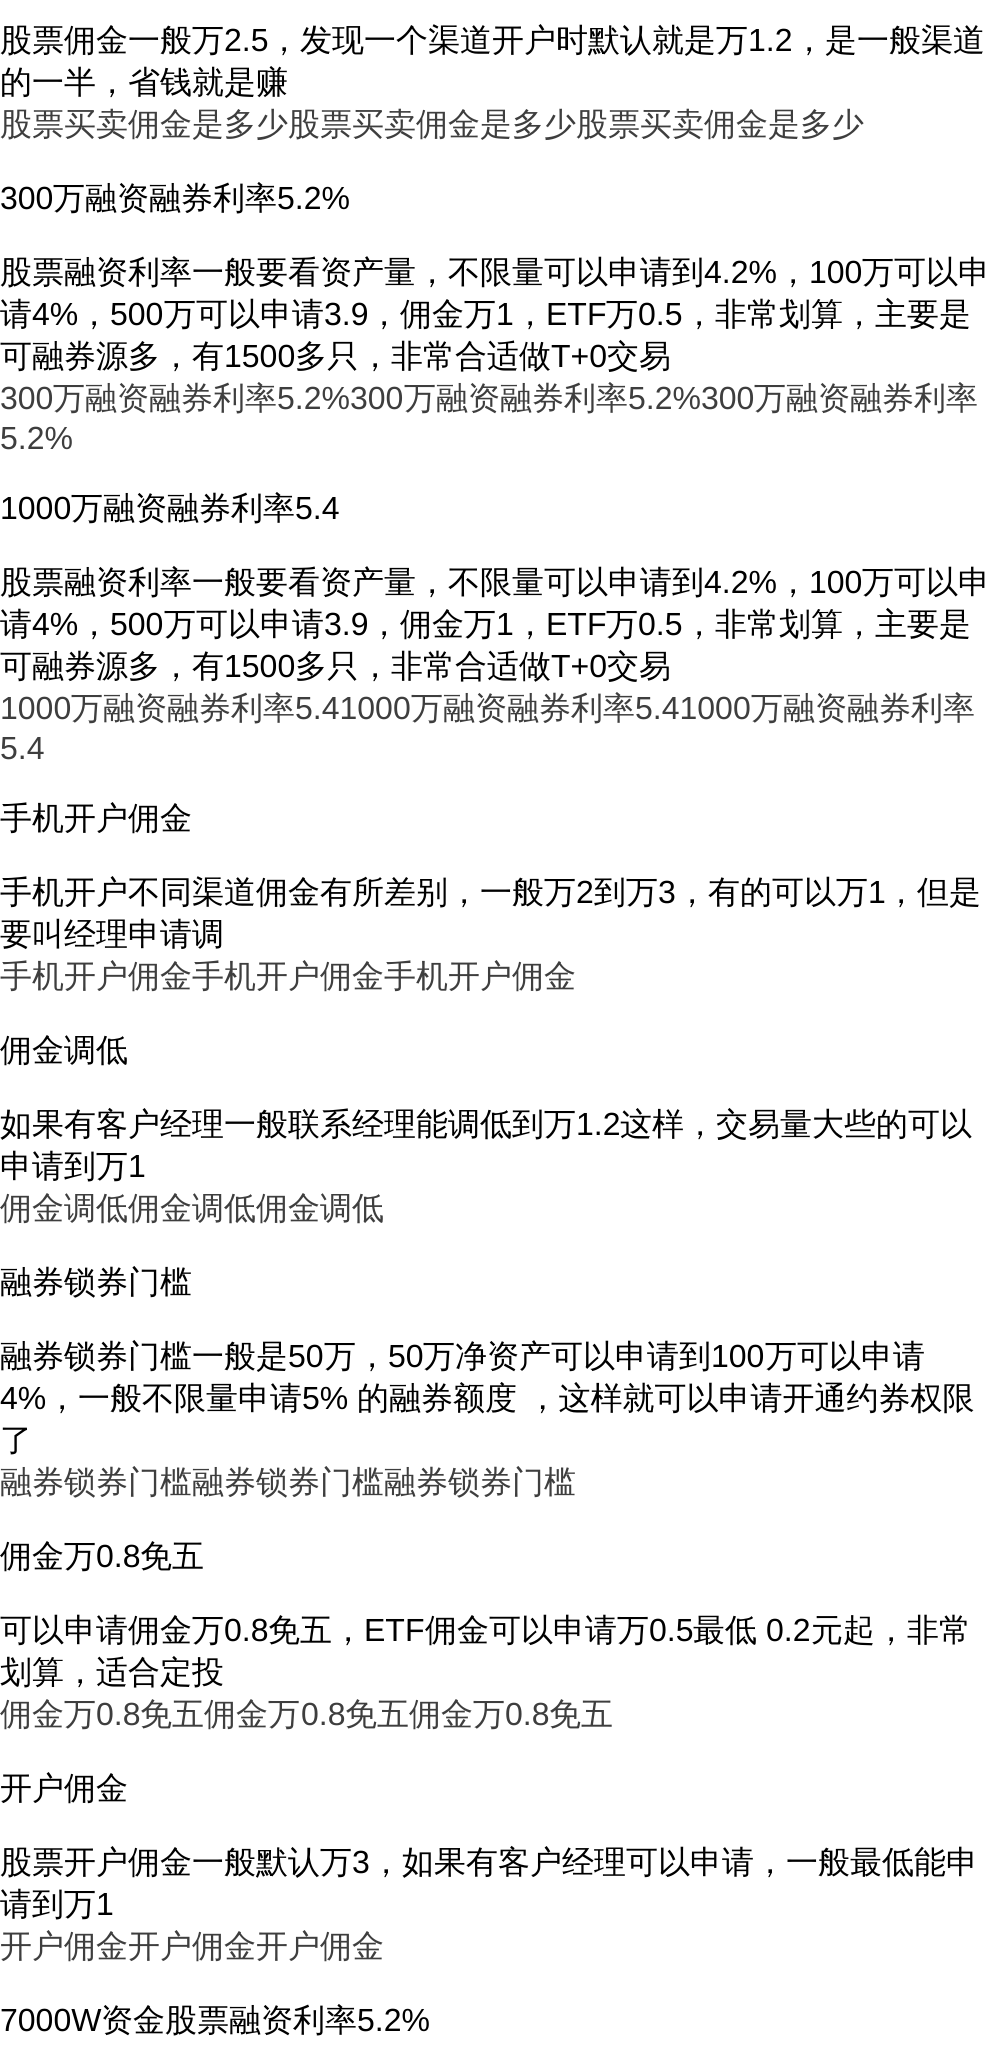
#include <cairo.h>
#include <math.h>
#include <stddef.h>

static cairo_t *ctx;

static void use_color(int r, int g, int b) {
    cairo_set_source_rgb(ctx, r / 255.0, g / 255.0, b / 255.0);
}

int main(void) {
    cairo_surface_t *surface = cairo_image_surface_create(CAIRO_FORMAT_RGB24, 998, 2055);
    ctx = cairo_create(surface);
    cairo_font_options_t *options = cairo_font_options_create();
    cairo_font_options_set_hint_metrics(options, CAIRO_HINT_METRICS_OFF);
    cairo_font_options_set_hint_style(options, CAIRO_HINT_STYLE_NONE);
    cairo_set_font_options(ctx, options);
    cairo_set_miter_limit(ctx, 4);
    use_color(255, 255, 255);
    cairo_paint(ctx);
    cairo_select_font_face(ctx, "WenQuanYi Zen Hei Medium", CAIRO_FONT_SLANT_NORMAL, CAIRO_FONT_WEIGHT_NORMAL);
    cairo_set_font_size(ctx, 32);
    use_color(0, 0, 0);
    cairo_move_to(ctx, 0, 51);
    cairo_show_text(ctx, "股票佣金一般万");
    cairo_select_font_face(ctx, "Liberation Sans", CAIRO_FONT_SLANT_NORMAL, CAIRO_FONT_WEIGHT_NORMAL);
    cairo_move_to(ctx, 224, 51);
    cairo_show_text(ctx, "2.5");
    cairo_select_font_face(ctx, "WenQuanYi Zen Hei Medium", CAIRO_FONT_SLANT_NORMAL, CAIRO_FONT_WEIGHT_NORMAL);
    cairo_move_to(ctx, 268, 51);
    cairo_show_text(ctx, "，发现一个渠道开户时默认就是万");
    cairo_select_font_face(ctx, "Liberation Sans", CAIRO_FONT_SLANT_NORMAL, CAIRO_FONT_WEIGHT_NORMAL);
    cairo_move_to(ctx, 748, 51);
    cairo_show_text(ctx, "1.2");
    cairo_select_font_face(ctx, "WenQuanYi Zen Hei Medium", CAIRO_FONT_SLANT_NORMAL, CAIRO_FONT_WEIGHT_NORMAL);
    cairo_move_to(ctx, 793, 51);
    cairo_show_text(ctx, "，是一般渠道");
    cairo_move_to(ctx, 0, 93);
    cairo_show_text(ctx, "的一半，省钱就是赚");
    use_color(62, 62, 62);
    cairo_move_to(ctx, 0, 135);
    cairo_show_text(ctx, "股票买卖佣金是多少股票买卖佣金是多少股票买卖佣金是多少");
    cairo_select_font_face(ctx, "Liberation Sans", CAIRO_FONT_SLANT_NORMAL, CAIRO_FONT_WEIGHT_NORMAL);
    use_color(0, 0, 0);
    cairo_move_to(ctx, 0, 209);
    cairo_show_text(ctx, "300");
    cairo_select_font_face(ctx, "WenQuanYi Zen Hei Medium", CAIRO_FONT_SLANT_NORMAL, CAIRO_FONT_WEIGHT_NORMAL);
    cairo_move_to(ctx, 53, 209);
    cairo_show_text(ctx, "万融资融券利率");
    cairo_select_font_face(ctx, "Liberation Sans", CAIRO_FONT_SLANT_NORMAL, CAIRO_FONT_WEIGHT_NORMAL);
    cairo_move_to(ctx, 277, 209);
    cairo_show_text(ctx, "5.2%");
    cairo_select_font_face(ctx, "WenQuanYi Zen Hei Medium", CAIRO_FONT_SLANT_NORMAL, CAIRO_FONT_WEIGHT_NORMAL);
    cairo_move_to(ctx, 0, 283);
    cairo_show_text(ctx, "股票融资利率一般要看资产量，不限量可以申请到");
    cairo_select_font_face(ctx, "Liberation Sans", CAIRO_FONT_SLANT_NORMAL, CAIRO_FONT_WEIGHT_NORMAL);
    cairo_move_to(ctx, 704, 283);
    cairo_show_text(ctx, "4.2%");
    cairo_select_font_face(ctx, "WenQuanYi Zen Hei Medium", CAIRO_FONT_SLANT_NORMAL, CAIRO_FONT_WEIGHT_NORMAL);
    cairo_move_to(ctx, 777, 283);
    cairo_show_text(ctx, "，");
    cairo_select_font_face(ctx, "Liberation Sans", CAIRO_FONT_SLANT_NORMAL, CAIRO_FONT_WEIGHT_NORMAL);
    cairo_move_to(ctx, 809, 283);
    cairo_show_text(ctx, "100");
    cairo_select_font_face(ctx, "WenQuanYi Zen Hei Medium", CAIRO_FONT_SLANT_NORMAL, CAIRO_FONT_WEIGHT_NORMAL);
    cairo_move_to(ctx, 862, 283);
    cairo_show_text(ctx, "万可以申");
    cairo_move_to(ctx, 0, 325);
    cairo_show_text(ctx, "请");
    cairo_select_font_face(ctx, "Liberation Sans", CAIRO_FONT_SLANT_NORMAL, CAIRO_FONT_WEIGHT_NORMAL);
    cairo_move_to(ctx, 32, 325);
    cairo_show_text(ctx, "4%");
    cairo_select_font_face(ctx, "WenQuanYi Zen Hei Medium", CAIRO_FONT_SLANT_NORMAL, CAIRO_FONT_WEIGHT_NORMAL);
    cairo_move_to(ctx, 78, 325);
    cairo_show_text(ctx, "，");
    cairo_select_font_face(ctx, "Liberation Sans", CAIRO_FONT_SLANT_NORMAL, CAIRO_FONT_WEIGHT_NORMAL);
    cairo_move_to(ctx, 110, 325);
    cairo_show_text(ctx, "500");
    cairo_select_font_face(ctx, "WenQuanYi Zen Hei Medium", CAIRO_FONT_SLANT_NORMAL, CAIRO_FONT_WEIGHT_NORMAL);
    cairo_move_to(ctx, 164, 325);
    cairo_show_text(ctx, "万可以申请");
    cairo_select_font_face(ctx, "Liberation Sans", CAIRO_FONT_SLANT_NORMAL, CAIRO_FONT_WEIGHT_NORMAL);
    cairo_move_to(ctx, 324, 325);
    cairo_show_text(ctx, "3.9");
    cairo_select_font_face(ctx, "WenQuanYi Zen Hei Medium", CAIRO_FONT_SLANT_NORMAL, CAIRO_FONT_WEIGHT_NORMAL);
    cairo_move_to(ctx, 368, 325);
    cairo_show_text(ctx, "，佣金万");
    cairo_select_font_face(ctx, "Liberation Sans", CAIRO_FONT_SLANT_NORMAL, CAIRO_FONT_WEIGHT_NORMAL);
    cairo_move_to(ctx, 496, 325);
    cairo_show_text(ctx, "1");
    cairo_select_font_face(ctx, "WenQuanYi Zen Hei Medium", CAIRO_FONT_SLANT_NORMAL, CAIRO_FONT_WEIGHT_NORMAL);
    cairo_move_to(ctx, 514, 325);
    cairo_show_text(ctx, "，");
    cairo_select_font_face(ctx, "Liberation Sans", CAIRO_FONT_SLANT_NORMAL, CAIRO_FONT_WEIGHT_NORMAL);
    cairo_move_to(ctx, 546, 325);
    cairo_show_text(ctx, "ETF");
    cairo_select_font_face(ctx, "WenQuanYi Zen Hei Medium", CAIRO_FONT_SLANT_NORMAL, CAIRO_FONT_WEIGHT_NORMAL);
    cairo_move_to(ctx, 606, 325);
    cairo_show_text(ctx, "万");
    cairo_select_font_face(ctx, "Liberation Sans", CAIRO_FONT_SLANT_NORMAL, CAIRO_FONT_WEIGHT_NORMAL);
    cairo_move_to(ctx, 638, 325);
    cairo_show_text(ctx, "0.5");
    cairo_select_font_face(ctx, "WenQuanYi Zen Hei Medium", CAIRO_FONT_SLANT_NORMAL, CAIRO_FONT_WEIGHT_NORMAL);
    cairo_move_to(ctx, 683, 325);
    cairo_show_text(ctx, "，非常划算，主要是");
    cairo_move_to(ctx, 0, 367);
    cairo_show_text(ctx, "可融券源多，有");
    cairo_select_font_face(ctx, "Liberation Sans", CAIRO_FONT_SLANT_NORMAL, CAIRO_FONT_WEIGHT_NORMAL);
    cairo_move_to(ctx, 224, 367);
    cairo_show_text(ctx, "1500");
    cairo_select_font_face(ctx, "WenQuanYi Zen Hei Medium", CAIRO_FONT_SLANT_NORMAL, CAIRO_FONT_WEIGHT_NORMAL);
    cairo_move_to(ctx, 295, 367);
    cairo_show_text(ctx, "多只，非常合适做");
    cairo_select_font_face(ctx, "Liberation Sans", CAIRO_FONT_SLANT_NORMAL, CAIRO_FONT_WEIGHT_NORMAL);
    cairo_move_to(ctx, 551, 367);
    cairo_show_text(ctx, "T+0");
    cairo_select_font_face(ctx, "WenQuanYi Zen Hei Medium", CAIRO_FONT_SLANT_NORMAL, CAIRO_FONT_WEIGHT_NORMAL);
    cairo_move_to(ctx, 607, 367);
    cairo_show_text(ctx, "交易");
    cairo_select_font_face(ctx, "Liberation Sans", CAIRO_FONT_SLANT_NORMAL, CAIRO_FONT_WEIGHT_NORMAL);
    use_color(62, 62, 62);
    cairo_move_to(ctx, 0, 409);
    cairo_show_text(ctx, "300");
    cairo_select_font_face(ctx, "WenQuanYi Zen Hei Medium", CAIRO_FONT_SLANT_NORMAL, CAIRO_FONT_WEIGHT_NORMAL);
    cairo_move_to(ctx, 53, 409);
    cairo_show_text(ctx, "万融资融券利率");
    cairo_select_font_face(ctx, "Liberation Sans", CAIRO_FONT_SLANT_NORMAL, CAIRO_FONT_WEIGHT_NORMAL);
    cairo_move_to(ctx, 277, 409);
    cairo_show_text(ctx, "5.2%300");
    cairo_select_font_face(ctx, "WenQuanYi Zen Hei Medium", CAIRO_FONT_SLANT_NORMAL, CAIRO_FONT_WEIGHT_NORMAL);
    cairo_move_to(ctx, 404, 409);
    cairo_show_text(ctx, "万融资融券利率");
    cairo_select_font_face(ctx, "Liberation Sans", CAIRO_FONT_SLANT_NORMAL, CAIRO_FONT_WEIGHT_NORMAL);
    cairo_move_to(ctx, 628, 409);
    cairo_show_text(ctx, "5.2%300");
    cairo_select_font_face(ctx, "WenQuanYi Zen Hei Medium", CAIRO_FONT_SLANT_NORMAL, CAIRO_FONT_WEIGHT_NORMAL);
    cairo_move_to(ctx, 754, 409);
    cairo_show_text(ctx, "万融资融券利率");
    cairo_select_font_face(ctx, "Liberation Sans", CAIRO_FONT_SLANT_NORMAL, CAIRO_FONT_WEIGHT_NORMAL);
    cairo_move_to(ctx, 0, 449);
    cairo_show_text(ctx, "5.2%");
    use_color(0, 0, 0);
    cairo_move_to(ctx, 0, 519);
    cairo_show_text(ctx, "1000");
    cairo_select_font_face(ctx, "WenQuanYi Zen Hei Medium", CAIRO_FONT_SLANT_NORMAL, CAIRO_FONT_WEIGHT_NORMAL);
    cairo_move_to(ctx, 71, 519);
    cairo_show_text(ctx, "万融资融券利率");
    cairo_select_font_face(ctx, "Liberation Sans", CAIRO_FONT_SLANT_NORMAL, CAIRO_FONT_WEIGHT_NORMAL);
    cairo_move_to(ctx, 295, 519);
    cairo_show_text(ctx, "5.4");
    cairo_select_font_face(ctx, "WenQuanYi Zen Hei Medium", CAIRO_FONT_SLANT_NORMAL, CAIRO_FONT_WEIGHT_NORMAL);
    cairo_move_to(ctx, 0, 593);
    cairo_show_text(ctx, "股票融资利率一般要看资产量，不限量可以申请到");
    cairo_select_font_face(ctx, "Liberation Sans", CAIRO_FONT_SLANT_NORMAL, CAIRO_FONT_WEIGHT_NORMAL);
    cairo_move_to(ctx, 704, 593);
    cairo_show_text(ctx, "4.2%");
    cairo_select_font_face(ctx, "WenQuanYi Zen Hei Medium", CAIRO_FONT_SLANT_NORMAL, CAIRO_FONT_WEIGHT_NORMAL);
    cairo_move_to(ctx, 777, 593);
    cairo_show_text(ctx, "，");
    cairo_select_font_face(ctx, "Liberation Sans", CAIRO_FONT_SLANT_NORMAL, CAIRO_FONT_WEIGHT_NORMAL);
    cairo_move_to(ctx, 809, 593);
    cairo_show_text(ctx, "100");
    cairo_select_font_face(ctx, "WenQuanYi Zen Hei Medium", CAIRO_FONT_SLANT_NORMAL, CAIRO_FONT_WEIGHT_NORMAL);
    cairo_move_to(ctx, 862, 593);
    cairo_show_text(ctx, "万可以申");
    cairo_move_to(ctx, 0, 635);
    cairo_show_text(ctx, "请");
    cairo_select_font_face(ctx, "Liberation Sans", CAIRO_FONT_SLANT_NORMAL, CAIRO_FONT_WEIGHT_NORMAL);
    cairo_move_to(ctx, 32, 635);
    cairo_show_text(ctx, "4%");
    cairo_select_font_face(ctx, "WenQuanYi Zen Hei Medium", CAIRO_FONT_SLANT_NORMAL, CAIRO_FONT_WEIGHT_NORMAL);
    cairo_move_to(ctx, 78, 635);
    cairo_show_text(ctx, "，");
    cairo_select_font_face(ctx, "Liberation Sans", CAIRO_FONT_SLANT_NORMAL, CAIRO_FONT_WEIGHT_NORMAL);
    cairo_move_to(ctx, 110, 635);
    cairo_show_text(ctx, "500");
    cairo_select_font_face(ctx, "WenQuanYi Zen Hei Medium", CAIRO_FONT_SLANT_NORMAL, CAIRO_FONT_WEIGHT_NORMAL);
    cairo_move_to(ctx, 164, 635);
    cairo_show_text(ctx, "万可以申请");
    cairo_select_font_face(ctx, "Liberation Sans", CAIRO_FONT_SLANT_NORMAL, CAIRO_FONT_WEIGHT_NORMAL);
    cairo_move_to(ctx, 324, 635);
    cairo_show_text(ctx, "3.9");
    cairo_select_font_face(ctx, "WenQuanYi Zen Hei Medium", CAIRO_FONT_SLANT_NORMAL, CAIRO_FONT_WEIGHT_NORMAL);
    cairo_move_to(ctx, 368, 635);
    cairo_show_text(ctx, "，佣金万");
    cairo_select_font_face(ctx, "Liberation Sans", CAIRO_FONT_SLANT_NORMAL, CAIRO_FONT_WEIGHT_NORMAL);
    cairo_move_to(ctx, 496, 635);
    cairo_show_text(ctx, "1");
    cairo_select_font_face(ctx, "WenQuanYi Zen Hei Medium", CAIRO_FONT_SLANT_NORMAL, CAIRO_FONT_WEIGHT_NORMAL);
    cairo_move_to(ctx, 514, 635);
    cairo_show_text(ctx, "，");
    cairo_select_font_face(ctx, "Liberation Sans", CAIRO_FONT_SLANT_NORMAL, CAIRO_FONT_WEIGHT_NORMAL);
    cairo_move_to(ctx, 546, 635);
    cairo_show_text(ctx, "ETF");
    cairo_select_font_face(ctx, "WenQuanYi Zen Hei Medium", CAIRO_FONT_SLANT_NORMAL, CAIRO_FONT_WEIGHT_NORMAL);
    cairo_move_to(ctx, 606, 635);
    cairo_show_text(ctx, "万");
    cairo_select_font_face(ctx, "Liberation Sans", CAIRO_FONT_SLANT_NORMAL, CAIRO_FONT_WEIGHT_NORMAL);
    cairo_move_to(ctx, 638, 635);
    cairo_show_text(ctx, "0.5");
    cairo_select_font_face(ctx, "WenQuanYi Zen Hei Medium", CAIRO_FONT_SLANT_NORMAL, CAIRO_FONT_WEIGHT_NORMAL);
    cairo_move_to(ctx, 683, 635);
    cairo_show_text(ctx, "，非常划算，主要是");
    cairo_move_to(ctx, 0, 677);
    cairo_show_text(ctx, "可融券源多，有");
    cairo_select_font_face(ctx, "Liberation Sans", CAIRO_FONT_SLANT_NORMAL, CAIRO_FONT_WEIGHT_NORMAL);
    cairo_move_to(ctx, 224, 677);
    cairo_show_text(ctx, "1500");
    cairo_select_font_face(ctx, "WenQuanYi Zen Hei Medium", CAIRO_FONT_SLANT_NORMAL, CAIRO_FONT_WEIGHT_NORMAL);
    cairo_move_to(ctx, 295, 677);
    cairo_show_text(ctx, "多只，非常合适做");
    cairo_select_font_face(ctx, "Liberation Sans", CAIRO_FONT_SLANT_NORMAL, CAIRO_FONT_WEIGHT_NORMAL);
    cairo_move_to(ctx, 551, 677);
    cairo_show_text(ctx, "T+0");
    cairo_select_font_face(ctx, "WenQuanYi Zen Hei Medium", CAIRO_FONT_SLANT_NORMAL, CAIRO_FONT_WEIGHT_NORMAL);
    cairo_move_to(ctx, 607, 677);
    cairo_show_text(ctx, "交易");
    cairo_select_font_face(ctx, "Liberation Sans", CAIRO_FONT_SLANT_NORMAL, CAIRO_FONT_WEIGHT_NORMAL);
    use_color(62, 62, 62);
    cairo_move_to(ctx, 0, 719);
    cairo_show_text(ctx, "1000");
    cairo_select_font_face(ctx, "WenQuanYi Zen Hei Medium", CAIRO_FONT_SLANT_NORMAL, CAIRO_FONT_WEIGHT_NORMAL);
    cairo_move_to(ctx, 71, 719);
    cairo_show_text(ctx, "万融资融券利率");
    cairo_select_font_face(ctx, "Liberation Sans", CAIRO_FONT_SLANT_NORMAL, CAIRO_FONT_WEIGHT_NORMAL);
    cairo_move_to(ctx, 295, 719);
    cairo_show_text(ctx, "5.41000");
    cairo_select_font_face(ctx, "WenQuanYi Zen Hei Medium", CAIRO_FONT_SLANT_NORMAL, CAIRO_FONT_WEIGHT_NORMAL);
    cairo_move_to(ctx, 411, 719);
    cairo_show_text(ctx, "万融资融券利率");
    cairo_select_font_face(ctx, "Liberation Sans", CAIRO_FONT_SLANT_NORMAL, CAIRO_FONT_WEIGHT_NORMAL);
    cairo_move_to(ctx, 635, 719);
    cairo_show_text(ctx, "5.41000");
    cairo_select_font_face(ctx, "WenQuanYi Zen Hei Medium", CAIRO_FONT_SLANT_NORMAL, CAIRO_FONT_WEIGHT_NORMAL);
    cairo_move_to(ctx, 751, 719);
    cairo_show_text(ctx, "万融资融券利率");
    cairo_select_font_face(ctx, "Liberation Sans", CAIRO_FONT_SLANT_NORMAL, CAIRO_FONT_WEIGHT_NORMAL);
    cairo_move_to(ctx, 0, 759);
    cairo_show_text(ctx, "5.4");
    cairo_select_font_face(ctx, "WenQuanYi Zen Hei Medium", CAIRO_FONT_SLANT_NORMAL, CAIRO_FONT_WEIGHT_NORMAL);
    use_color(0, 0, 0);
    cairo_move_to(ctx, 0, 829);
    cairo_show_text(ctx, "手机开户佣金");
    cairo_move_to(ctx, 0, 903);
    cairo_show_text(ctx, "手机开户不同渠道佣金有所差别，一般万");
    cairo_select_font_face(ctx, "Liberation Sans", CAIRO_FONT_SLANT_NORMAL, CAIRO_FONT_WEIGHT_NORMAL);
    cairo_move_to(ctx, 576, 903);
    cairo_show_text(ctx, "2");
    cairo_select_font_face(ctx, "WenQuanYi Zen Hei Medium", CAIRO_FONT_SLANT_NORMAL, CAIRO_FONT_WEIGHT_NORMAL);
    cairo_move_to(ctx, 594, 903);
    cairo_show_text(ctx, "到万");
    cairo_select_font_face(ctx, "Liberation Sans", CAIRO_FONT_SLANT_NORMAL, CAIRO_FONT_WEIGHT_NORMAL);
    cairo_move_to(ctx, 658, 903);
    cairo_show_text(ctx, "3");
    cairo_select_font_face(ctx, "WenQuanYi Zen Hei Medium", CAIRO_FONT_SLANT_NORMAL, CAIRO_FONT_WEIGHT_NORMAL);
    cairo_move_to(ctx, 676, 903);
    cairo_show_text(ctx, "，有的可以万");
    cairo_select_font_face(ctx, "Liberation Sans", CAIRO_FONT_SLANT_NORMAL, CAIRO_FONT_WEIGHT_NORMAL);
    cairo_move_to(ctx, 868, 903);
    cairo_show_text(ctx, "1");
    cairo_select_font_face(ctx, "WenQuanYi Zen Hei Medium", CAIRO_FONT_SLANT_NORMAL, CAIRO_FONT_WEIGHT_NORMAL);
    cairo_move_to(ctx, 885, 903);
    cairo_show_text(ctx, "，但是");
    cairo_move_to(ctx, 0, 945);
    cairo_show_text(ctx, "要叫经理申请调");
    use_color(62, 62, 62);
    cairo_move_to(ctx, 0, 987);
    cairo_show_text(ctx, "手机开户佣金手机开户佣金手机开户佣金");
    use_color(0, 0, 0);
    cairo_move_to(ctx, 0, 1061);
    cairo_show_text(ctx, "佣金调低");
    cairo_move_to(ctx, 0, 1135);
    cairo_show_text(ctx, "如果有客户经理一般联系经理能调低到万");
    cairo_select_font_face(ctx, "Liberation Sans", CAIRO_FONT_SLANT_NORMAL, CAIRO_FONT_WEIGHT_NORMAL);
    cairo_move_to(ctx, 576, 1135);
    cairo_show_text(ctx, "1.2");
    cairo_select_font_face(ctx, "WenQuanYi Zen Hei Medium", CAIRO_FONT_SLANT_NORMAL, CAIRO_FONT_WEIGHT_NORMAL);
    cairo_move_to(ctx, 620, 1135);
    cairo_show_text(ctx, "这样，交易量大些的可以");
    cairo_move_to(ctx, 0, 1177);
    cairo_show_text(ctx, "申请到万");
    cairo_select_font_face(ctx, "Liberation Sans", CAIRO_FONT_SLANT_NORMAL, CAIRO_FONT_WEIGHT_NORMAL);
    cairo_move_to(ctx, 128, 1177);
    cairo_show_text(ctx, "1");
    cairo_select_font_face(ctx, "WenQuanYi Zen Hei Medium", CAIRO_FONT_SLANT_NORMAL, CAIRO_FONT_WEIGHT_NORMAL);
    use_color(62, 62, 62);
    cairo_move_to(ctx, 0, 1219);
    cairo_show_text(ctx, "佣金调低佣金调低佣金调低");
    use_color(0, 0, 0);
    cairo_move_to(ctx, 0, 1293);
    cairo_show_text(ctx, "融券锁券门槛");
    cairo_move_to(ctx, 0, 1367);
    cairo_show_text(ctx, "融券锁券门槛一般是");
    cairo_select_font_face(ctx, "Liberation Sans", CAIRO_FONT_SLANT_NORMAL, CAIRO_FONT_WEIGHT_NORMAL);
    cairo_move_to(ctx, 288, 1367);
    cairo_show_text(ctx, "50");
    cairo_select_font_face(ctx, "WenQuanYi Zen Hei Medium", CAIRO_FONT_SLANT_NORMAL, CAIRO_FONT_WEIGHT_NORMAL);
    cairo_move_to(ctx, 324, 1367);
    cairo_show_text(ctx, "万，");
    cairo_select_font_face(ctx, "Liberation Sans", CAIRO_FONT_SLANT_NORMAL, CAIRO_FONT_WEIGHT_NORMAL);
    cairo_move_to(ctx, 388, 1367);
    cairo_show_text(ctx, "50");
    cairo_select_font_face(ctx, "WenQuanYi Zen Hei Medium", CAIRO_FONT_SLANT_NORMAL, CAIRO_FONT_WEIGHT_NORMAL);
    cairo_move_to(ctx, 423, 1367);
    cairo_show_text(ctx, "万净资产可以申请到");
    cairo_select_font_face(ctx, "Liberation Sans", CAIRO_FONT_SLANT_NORMAL, CAIRO_FONT_WEIGHT_NORMAL);
    cairo_move_to(ctx, 711, 1367);
    cairo_show_text(ctx, "100");
    cairo_select_font_face(ctx, "WenQuanYi Zen Hei Medium", CAIRO_FONT_SLANT_NORMAL, CAIRO_FONT_WEIGHT_NORMAL);
    cairo_move_to(ctx, 765, 1367);
    cairo_show_text(ctx, "万可以申请");
    cairo_select_font_face(ctx, "Liberation Sans", CAIRO_FONT_SLANT_NORMAL, CAIRO_FONT_WEIGHT_NORMAL);
    cairo_move_to(ctx, 0, 1409);
    cairo_show_text(ctx, "4%");
    cairo_select_font_face(ctx, "WenQuanYi Zen Hei Medium", CAIRO_FONT_SLANT_NORMAL, CAIRO_FONT_WEIGHT_NORMAL);
    cairo_move_to(ctx, 46, 1409);
    cairo_show_text(ctx, "，一般不限量申请");
    cairo_select_font_face(ctx, "Liberation Sans", CAIRO_FONT_SLANT_NORMAL, CAIRO_FONT_WEIGHT_NORMAL);
    cairo_move_to(ctx, 302, 1409);
    cairo_show_text(ctx, "5%");
    cairo_select_font_face(ctx, "WenQuanYi Zen Hei Medium", CAIRO_FONT_SLANT_NORMAL, CAIRO_FONT_WEIGHT_NORMAL);
    cairo_move_to(ctx, 357, 1409);
    cairo_show_text(ctx, "的融券额度 ，这样就可以申请开通约券权限");
    cairo_move_to(ctx, 0, 1451);
    cairo_show_text(ctx, "了");
    use_color(62, 62, 62);
    cairo_move_to(ctx, 0, 1493);
    cairo_show_text(ctx, "融券锁券门槛融券锁券门槛融券锁券门槛");
    use_color(0, 0, 0);
    cairo_move_to(ctx, 0, 1567);
    cairo_show_text(ctx, "佣金万");
    cairo_select_font_face(ctx, "Liberation Sans", CAIRO_FONT_SLANT_NORMAL, CAIRO_FONT_WEIGHT_NORMAL);
    cairo_move_to(ctx, 96, 1567);
    cairo_show_text(ctx, "0.8");
    cairo_select_font_face(ctx, "WenQuanYi Zen Hei Medium", CAIRO_FONT_SLANT_NORMAL, CAIRO_FONT_WEIGHT_NORMAL);
    cairo_move_to(ctx, 140, 1567);
    cairo_show_text(ctx, "免五");
    cairo_move_to(ctx, 0, 1641);
    cairo_show_text(ctx, "可以申请佣金万");
    cairo_select_font_face(ctx, "Liberation Sans", CAIRO_FONT_SLANT_NORMAL, CAIRO_FONT_WEIGHT_NORMAL);
    cairo_move_to(ctx, 224, 1641);
    cairo_show_text(ctx, "0.8");
    cairo_select_font_face(ctx, "WenQuanYi Zen Hei Medium", CAIRO_FONT_SLANT_NORMAL, CAIRO_FONT_WEIGHT_NORMAL);
    cairo_move_to(ctx, 268, 1641);
    cairo_show_text(ctx, "免五，");
    cairo_select_font_face(ctx, "Liberation Sans", CAIRO_FONT_SLANT_NORMAL, CAIRO_FONT_WEIGHT_NORMAL);
    cairo_move_to(ctx, 364, 1641);
    cairo_show_text(ctx, "ETF");
    cairo_select_font_face(ctx, "WenQuanYi Zen Hei Medium", CAIRO_FONT_SLANT_NORMAL, CAIRO_FONT_WEIGHT_NORMAL);
    cairo_move_to(ctx, 425, 1641);
    cairo_show_text(ctx, "佣金可以申请万");
    cairo_select_font_face(ctx, "Liberation Sans", CAIRO_FONT_SLANT_NORMAL, CAIRO_FONT_WEIGHT_NORMAL);
    cairo_move_to(ctx, 649, 1641);
    cairo_show_text(ctx, "0.5");
    cairo_select_font_face(ctx, "WenQuanYi Zen Hei Medium", CAIRO_FONT_SLANT_NORMAL, CAIRO_FONT_WEIGHT_NORMAL);
    cairo_move_to(ctx, 693, 1641);
    cairo_show_text(ctx, "最低");
    cairo_select_font_face(ctx, "Liberation Sans", CAIRO_FONT_SLANT_NORMAL, CAIRO_FONT_WEIGHT_NORMAL);
    cairo_move_to(ctx, 766, 1641);
    cairo_show_text(ctx, "0.2");
    cairo_select_font_face(ctx, "WenQuanYi Zen Hei Medium", CAIRO_FONT_SLANT_NORMAL, CAIRO_FONT_WEIGHT_NORMAL);
    cairo_move_to(ctx, 811, 1641);
    cairo_show_text(ctx, "元起，非常");
    cairo_move_to(ctx, 0, 1683);
    cairo_show_text(ctx, "划算，适合定投");
    use_color(62, 62, 62);
    cairo_move_to(ctx, 0, 1725);
    cairo_show_text(ctx, "佣金万");
    cairo_select_font_face(ctx, "Liberation Sans", CAIRO_FONT_SLANT_NORMAL, CAIRO_FONT_WEIGHT_NORMAL);
    cairo_move_to(ctx, 96, 1725);
    cairo_show_text(ctx, "0.8");
    cairo_select_font_face(ctx, "WenQuanYi Zen Hei Medium", CAIRO_FONT_SLANT_NORMAL, CAIRO_FONT_WEIGHT_NORMAL);
    cairo_move_to(ctx, 140, 1725);
    cairo_show_text(ctx, "免五佣金万");
    cairo_select_font_face(ctx, "Liberation Sans", CAIRO_FONT_SLANT_NORMAL, CAIRO_FONT_WEIGHT_NORMAL);
    cairo_move_to(ctx, 301, 1725);
    cairo_show_text(ctx, "0.8");
    cairo_select_font_face(ctx, "WenQuanYi Zen Hei Medium", CAIRO_FONT_SLANT_NORMAL, CAIRO_FONT_WEIGHT_NORMAL);
    cairo_move_to(ctx, 345, 1725);
    cairo_show_text(ctx, "免五佣金万");
    cairo_select_font_face(ctx, "Liberation Sans", CAIRO_FONT_SLANT_NORMAL, CAIRO_FONT_WEIGHT_NORMAL);
    cairo_move_to(ctx, 505, 1725);
    cairo_show_text(ctx, "0.8");
    cairo_select_font_face(ctx, "WenQuanYi Zen Hei Medium", CAIRO_FONT_SLANT_NORMAL, CAIRO_FONT_WEIGHT_NORMAL);
    cairo_move_to(ctx, 549, 1725);
    cairo_show_text(ctx, "免五");
    use_color(0, 0, 0);
    cairo_move_to(ctx, 0, 1799);
    cairo_show_text(ctx, "开户佣金");
    cairo_move_to(ctx, 0, 1873);
    cairo_show_text(ctx, "股票开户佣金一般默认万");
    cairo_select_font_face(ctx, "Liberation Sans", CAIRO_FONT_SLANT_NORMAL, CAIRO_FONT_WEIGHT_NORMAL);
    cairo_move_to(ctx, 352, 1873);
    cairo_show_text(ctx, "3");
    cairo_select_font_face(ctx, "WenQuanYi Zen Hei Medium", CAIRO_FONT_SLANT_NORMAL, CAIRO_FONT_WEIGHT_NORMAL);
    cairo_move_to(ctx, 370, 1873);
    cairo_show_text(ctx, "，如果有客户经理可以申请，一般最低能申");
    cairo_move_to(ctx, 0, 1915);
    cairo_show_text(ctx, "请到万");
    cairo_select_font_face(ctx, "Liberation Sans", CAIRO_FONT_SLANT_NORMAL, CAIRO_FONT_WEIGHT_NORMAL);
    cairo_move_to(ctx, 96, 1915);
    cairo_show_text(ctx, "1");
    cairo_select_font_face(ctx, "WenQuanYi Zen Hei Medium", CAIRO_FONT_SLANT_NORMAL, CAIRO_FONT_WEIGHT_NORMAL);
    use_color(62, 62, 62);
    cairo_move_to(ctx, 0, 1957);
    cairo_show_text(ctx, "开户佣金开户佣金开户佣金");
    cairo_select_font_face(ctx, "Liberation Sans", CAIRO_FONT_SLANT_NORMAL, CAIRO_FONT_WEIGHT_NORMAL);
    use_color(0, 0, 0);
    cairo_move_to(ctx, 0, 2031);
    cairo_show_text(ctx, "7000W");
    cairo_select_font_face(ctx, "WenQuanYi Zen Hei Medium", CAIRO_FONT_SLANT_NORMAL, CAIRO_FONT_WEIGHT_NORMAL);
    cairo_move_to(ctx, 101, 2031);
    cairo_show_text(ctx, "资金股票融资利率");
    cairo_select_font_face(ctx, "Liberation Sans", CAIRO_FONT_SLANT_NORMAL, CAIRO_FONT_WEIGHT_NORMAL);
    cairo_move_to(ctx, 357, 2031);
    cairo_show_text(ctx, "5.2%");
    cairo_surface_write_to_png(surface, "result.png");
    cairo_font_options_destroy(options);
    cairo_destroy(ctx);
    cairo_surface_destroy(surface);
    return 0;
}
